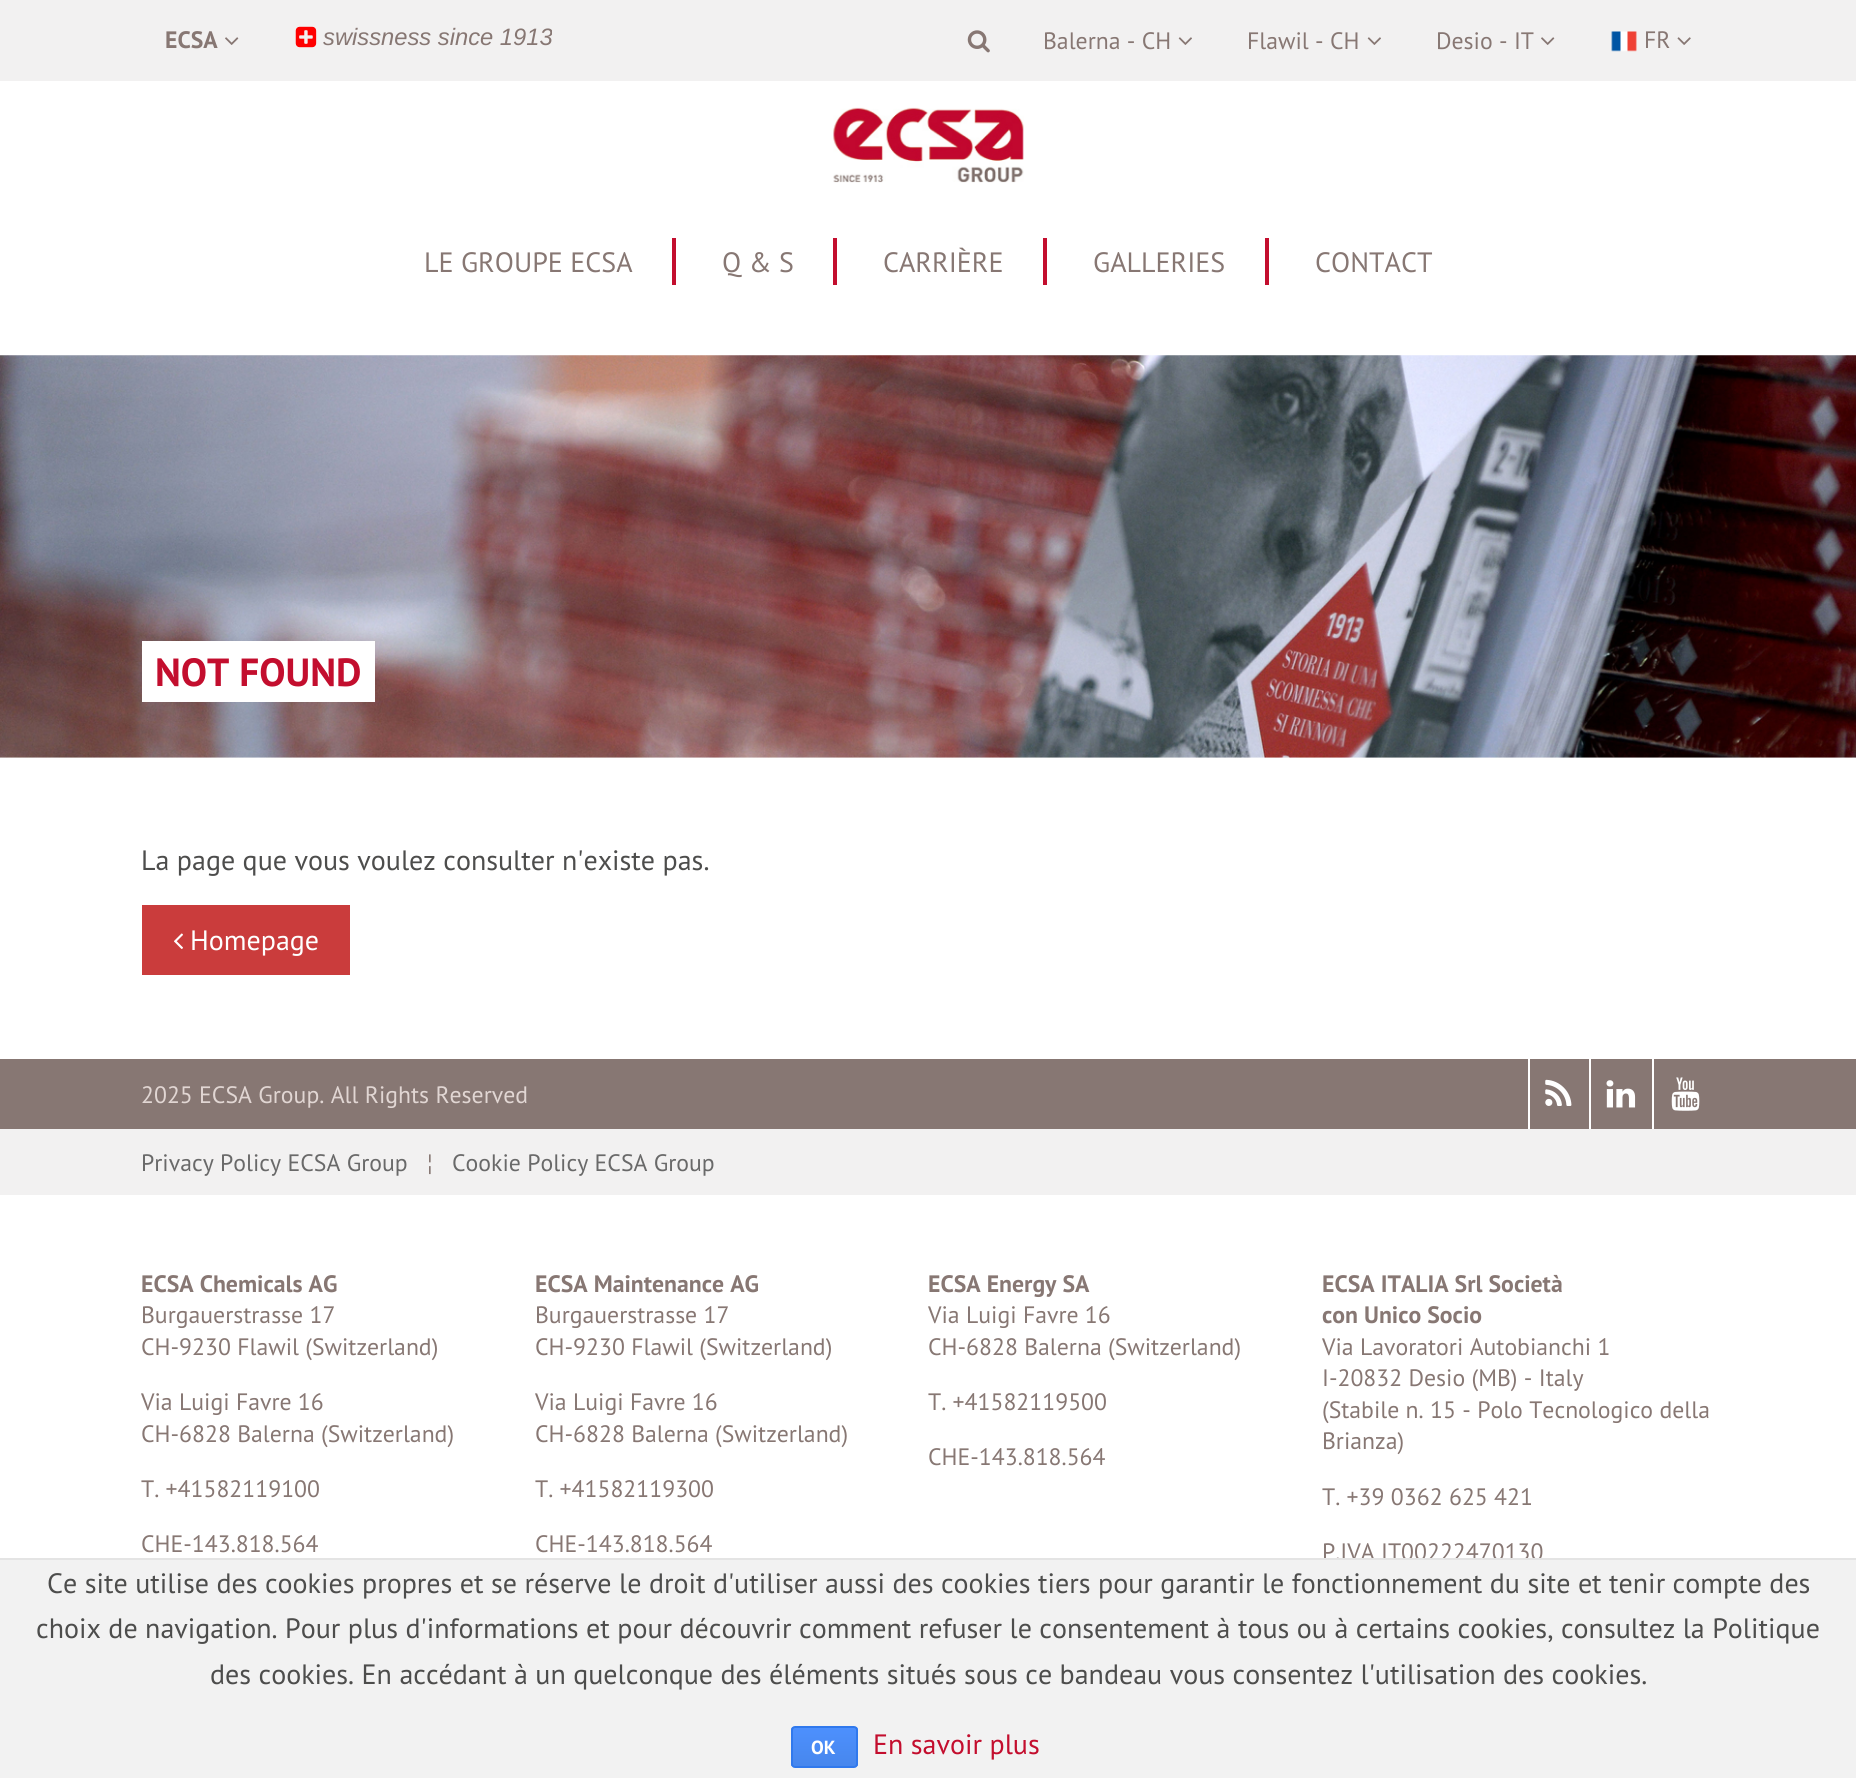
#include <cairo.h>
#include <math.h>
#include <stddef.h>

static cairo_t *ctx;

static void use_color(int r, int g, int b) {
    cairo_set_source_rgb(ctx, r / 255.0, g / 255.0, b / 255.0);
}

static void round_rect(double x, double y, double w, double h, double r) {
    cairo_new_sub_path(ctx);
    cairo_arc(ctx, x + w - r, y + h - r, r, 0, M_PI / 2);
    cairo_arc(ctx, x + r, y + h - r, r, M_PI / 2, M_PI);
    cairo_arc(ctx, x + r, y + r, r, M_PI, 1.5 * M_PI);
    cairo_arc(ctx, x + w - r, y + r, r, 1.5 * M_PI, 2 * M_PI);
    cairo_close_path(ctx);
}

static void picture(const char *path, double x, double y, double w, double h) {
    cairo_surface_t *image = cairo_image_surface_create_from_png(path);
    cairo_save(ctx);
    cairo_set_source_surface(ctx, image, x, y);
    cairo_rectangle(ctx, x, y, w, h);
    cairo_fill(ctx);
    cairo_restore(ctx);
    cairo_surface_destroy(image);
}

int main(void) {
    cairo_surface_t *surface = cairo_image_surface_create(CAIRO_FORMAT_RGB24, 1856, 1778);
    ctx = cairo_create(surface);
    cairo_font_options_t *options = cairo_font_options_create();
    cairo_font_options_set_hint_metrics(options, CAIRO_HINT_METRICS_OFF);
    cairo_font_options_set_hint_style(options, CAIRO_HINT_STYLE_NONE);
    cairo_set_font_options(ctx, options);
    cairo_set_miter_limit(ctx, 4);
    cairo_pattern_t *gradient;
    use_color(255, 255, 255);
    cairo_paint(ctx);
    use_color(242, 241, 241);
    cairo_rectangle(ctx, 0, 0, 1856, 81);
    cairo_fill(ctx);
    cairo_select_font_face(ctx, "PT Sans", CAIRO_FONT_SLANT_NORMAL, CAIRO_FONT_WEIGHT_BOLD);
    cairo_set_font_size(ctx, 23.75);
    use_color(135, 119, 115);
    cairo_move_to(ctx, 165, 48);
    cairo_show_text(ctx, "ECSA");
    picture("img1.png", 225, 37, 14, 8);
    picture("img2.png", 295, 26, 22, 22);
    cairo_select_font_face(ctx, "Liberation Sans", CAIRO_FONT_SLANT_ITALIC, CAIRO_FONT_WEIGHT_NORMAL);
    cairo_move_to(ctx, 323, 45);
    cairo_show_text(ctx, "swissness since 1913");
    picture("img3.png", 967, 30, 23, 23);
    cairo_select_font_face(ctx, "PT Sans", CAIRO_FONT_SLANT_NORMAL, CAIRO_FONT_WEIGHT_NORMAL);
    cairo_move_to(ctx, 1043, 49);
    cairo_show_text(ctx, "Balerna - CH");
    picture("img4.png", 1178, 37, 14, 8);
    cairo_move_to(ctx, 1247, 49);
    cairo_show_text(ctx, "Flawil - CH");
    picture("img4.png", 1367, 37, 14, 8);
    cairo_move_to(ctx, 1436, 49);
    cairo_show_text(ctx, "Desio - IT");
    picture("img1.png", 1541, 37, 14, 8);
    picture("img5.png", 1611, 31, 26, 21);
    cairo_move_to(ctx, 1644, 48);
    cairo_show_text(ctx, "FR");
    picture("img6.png", 1677, 37, 14, 8);
    picture("img7.png", 833, 107, 191, 76);
    use_color(195, 14, 46);
    cairo_rectangle(ctx, 672, 238, 4, 47);
    cairo_fill(ctx);
    cairo_set_font_size(ctx, 28);
    use_color(135, 119, 115);
    cairo_move_to(ctx, 424, 272);
    cairo_show_text(ctx, "LE GROUPE ECSA");
    use_color(195, 14, 46);
    cairo_rectangle(ctx, 833, 238, 4, 47);
    cairo_fill(ctx);
    use_color(135, 119, 115);
    cairo_move_to(ctx, 722, 272);
    cairo_show_text(ctx, "Q & S");
    use_color(195, 14, 46);
    cairo_rectangle(ctx, 1043, 238, 4, 47);
    cairo_fill(ctx);
    use_color(135, 119, 115);
    cairo_move_to(ctx, 883, 272);
    cairo_show_text(ctx, "CARRIÈRE");
    use_color(195, 14, 46);
    cairo_rectangle(ctx, 1265, 238, 4, 47);
    cairo_fill(ctx);
    use_color(135, 119, 115);
    cairo_move_to(ctx, 1093, 272);
    cairo_show_text(ctx, "GALLERIES");
    cairo_move_to(ctx, 1315, 272);
    cairo_show_text(ctx, "CONTACT");
    picture("img8.png", 0, 355, 1856, 403);
    use_color(255, 255, 255);
    cairo_rectangle(ctx, 142, 641, 233, 61);
    cairo_fill(ctx);
    cairo_select_font_face(ctx, "PT Sans", CAIRO_FONT_SLANT_NORMAL, CAIRO_FONT_WEIGHT_BOLD);
    cairo_set_font_size(ctx, 39.25);
    use_color(195, 14, 46);
    cairo_move_to(ctx, 155, 686);
    cairo_show_text(ctx, "NOT FOUND");
    cairo_select_font_face(ctx, "PT Sans", CAIRO_FONT_SLANT_NORMAL, CAIRO_FONT_WEIGHT_NORMAL);
    cairo_set_font_size(ctx, 28);
    use_color(77, 77, 76);
    cairo_move_to(ctx, 141, 870);
    cairo_show_text(ctx, "La page que vous voulez consulter n'existe pas.");
    use_color(202, 60, 60);
    cairo_rectangle(ctx, 142, 905, 208, 70);
    cairo_fill(ctx);
    picture("img9.png", 174, 933, 9, 16);
    use_color(255, 255, 255);
    cairo_move_to(ctx, 190, 950);
    cairo_show_text(ctx, "Homepage");
    use_color(135, 119, 115);
    cairo_rectangle(ctx, 0, 1059, 1856, 70);
    cairo_fill(ctx);
    cairo_set_font_size(ctx, 23.75);
    use_color(225, 214, 211);
    cairo_move_to(ctx, 141, 1103);
    cairo_show_text(ctx, "2025 ECSA Group. All Rights Reserved");
    use_color(255, 255, 255);
    cairo_rectangle(ctx, 1528, 1059, 2, 70);
    cairo_fill(ctx);
    picture("img10.png", 1545, 1079, 27, 27);
    cairo_rectangle(ctx, 1589, 1059, 2, 70);
    cairo_fill(ctx);
    picture("img11.png", 1606, 1080, 30, 28);
    cairo_rectangle(ctx, 1652, 1059, 2, 70);
    cairo_fill(ctx);
    picture("img12.png", 1671, 1077, 29, 34);
    use_color(242, 241, 241);
    cairo_rectangle(ctx, 0, 1129, 1856, 66);
    cairo_fill(ctx);
    use_color(105, 105, 105);
    cairo_move_to(ctx, 141, 1171);
    cairo_show_text(ctx, "Privacy Policy ECSA Group");
    use_color(135, 119, 115);
    cairo_move_to(ctx, 427, 1171);
    cairo_show_text(ctx, "¦");
    use_color(105, 105, 105);
    cairo_move_to(ctx, 452, 1171);
    cairo_show_text(ctx, "Cookie Policy ECSA Group");
    cairo_select_font_face(ctx, "PT Sans", CAIRO_FONT_SLANT_NORMAL, CAIRO_FONT_WEIGHT_BOLD);
    use_color(135, 119, 115);
    cairo_move_to(ctx, 141, 1292);
    cairo_show_text(ctx, "ECSA Chemicals AG");
    cairo_select_font_face(ctx, "PT Sans", CAIRO_FONT_SLANT_NORMAL, CAIRO_FONT_WEIGHT_NORMAL);
    cairo_move_to(ctx, 141, 1323);
    cairo_show_text(ctx, "Burgauerstrasse 17");
    cairo_move_to(ctx, 141, 1355);
    cairo_show_text(ctx, "CH-9230 Flawil (Switzerland)");
    cairo_move_to(ctx, 141, 1410);
    cairo_show_text(ctx, "Via Luigi Favre 16");
    cairo_move_to(ctx, 141, 1442);
    cairo_show_text(ctx, "CH-6828 Balerna (Switzerland)");
    cairo_move_to(ctx, 141, 1497);
    cairo_show_text(ctx, "T. +41582119100");
    cairo_move_to(ctx, 141, 1552);
    cairo_show_text(ctx, "CHE-143.818.564");
    cairo_select_font_face(ctx, "PT Sans", CAIRO_FONT_SLANT_NORMAL, CAIRO_FONT_WEIGHT_BOLD);
    cairo_move_to(ctx, 535, 1292);
    cairo_show_text(ctx, "ECSA Maintenance AG");
    cairo_select_font_face(ctx, "PT Sans", CAIRO_FONT_SLANT_NORMAL, CAIRO_FONT_WEIGHT_NORMAL);
    cairo_move_to(ctx, 535, 1323);
    cairo_show_text(ctx, "Burgauerstrasse 17");
    cairo_move_to(ctx, 535, 1355);
    cairo_show_text(ctx, "CH-9230 Flawil (Switzerland)");
    cairo_move_to(ctx, 535, 1410);
    cairo_show_text(ctx, "Via Luigi Favre 16");
    cairo_move_to(ctx, 535, 1442);
    cairo_show_text(ctx, "CH-6828 Balerna (Switzerland)");
    cairo_move_to(ctx, 535, 1497);
    cairo_show_text(ctx, "T. +41582119300");
    cairo_move_to(ctx, 535, 1552);
    cairo_show_text(ctx, "CHE-143.818.564");
    cairo_select_font_face(ctx, "PT Sans", CAIRO_FONT_SLANT_NORMAL, CAIRO_FONT_WEIGHT_BOLD);
    cairo_move_to(ctx, 928, 1292);
    cairo_show_text(ctx, "ECSA Energy SA");
    cairo_select_font_face(ctx, "PT Sans", CAIRO_FONT_SLANT_NORMAL, CAIRO_FONT_WEIGHT_NORMAL);
    cairo_move_to(ctx, 928, 1323);
    cairo_show_text(ctx, "Via Luigi Favre 16");
    cairo_move_to(ctx, 928, 1355);
    cairo_show_text(ctx, "CH-6828 Balerna (Switzerland)");
    cairo_move_to(ctx, 928, 1410);
    cairo_show_text(ctx, "T. +41582119500");
    cairo_move_to(ctx, 928, 1465);
    cairo_show_text(ctx, "CHE-143.818.564");
    cairo_select_font_face(ctx, "PT Sans", CAIRO_FONT_SLANT_NORMAL, CAIRO_FONT_WEIGHT_BOLD);
    cairo_move_to(ctx, 1322, 1292);
    cairo_show_text(ctx, "ECSA ITALIA Srl Società");
    cairo_move_to(ctx, 1322, 1323);
    cairo_show_text(ctx, "con Unico Socio");
    cairo_select_font_face(ctx, "PT Sans", CAIRO_FONT_SLANT_NORMAL, CAIRO_FONT_WEIGHT_NORMAL);
    cairo_move_to(ctx, 1322, 1355);
    cairo_show_text(ctx, "Via Lavoratori Autobianchi 1");
    cairo_move_to(ctx, 1322, 1386);
    cairo_show_text(ctx, "I-20832 Desio (MB) - Italy");
    cairo_move_to(ctx, 1322, 1418);
    cairo_show_text(ctx, "(Stabile n. 15 - Polo Tecnologico della");
    cairo_move_to(ctx, 1322, 1449);
    cairo_show_text(ctx, "Brianza)");
    cairo_move_to(ctx, 1322, 1505);
    cairo_show_text(ctx, "T. +39 0362 625 421");
    cairo_move_to(ctx, 1322, 1560);
    cairo_show_text(ctx, "P.IVA IT00222470130");
    use_color(242, 242, 242);
    cairo_rectangle(ctx, 0, 1560, 1856, 218);
    cairo_fill(ctx);
    use_color(228, 228, 228);
    cairo_rectangle(ctx, 0, 1558, 1856, 2);
    cairo_fill(ctx);
    cairo_set_font_size(ctx, 28);
    use_color(77, 77, 76);
    cairo_move_to(ctx, 47, 1593);
    cairo_show_text(ctx, "Ce site utilise des cookies propres et se réserve le droit d'utiliser aussi des cookies tiers pour garantir le fonctionnement du site et tenir compte des");
    cairo_move_to(ctx, 36, 1638);
    cairo_show_text(ctx, "choix de navigation. Pour plus d'informations et pour découvrir comment refuser le consentement à tous ou à certains cookies, consultez la Politique");
    cairo_move_to(ctx, 210, 1684);
    cairo_show_text(ctx, "des cookies. En accédant à un quelconque des éléments situés sous ce bandeau vous consentez l'utilisation des cookies.");
    cairo_save(ctx);
    round_rect(791, 1726, 67, 42, 4);
    cairo_clip(ctx);
    gradient = cairo_pattern_create_linear(824, 1727, 824, 1766);
    cairo_pattern_add_color_stop_rgba(gradient, 0, 0.302, 0.565, 0.996, 1);
    cairo_pattern_add_color_stop_rgba(gradient, 1, 0.278, 0.529, 0.929, 1);
    cairo_set_source(ctx, gradient);
    cairo_pattern_destroy(gradient);
    cairo_rectangle(ctx, 791, 1727, 67, 39);
    cairo_fill(ctx);
    cairo_restore(ctx);
    round_rect(792, 1727, 65, 40, 3);
    use_color(48, 121, 237);
    cairo_stroke(ctx);
    cairo_select_font_face(ctx, "PT Sans", CAIRO_FONT_SLANT_NORMAL, CAIRO_FONT_WEIGHT_BOLD);
    cairo_set_font_size(ctx, 19);
    use_color(255, 255, 255);
    cairo_move_to(ctx, 811, 1754);
    cairo_show_text(ctx, "OK");
    cairo_select_font_face(ctx, "PT Sans", CAIRO_FONT_SLANT_NORMAL, CAIRO_FONT_WEIGHT_NORMAL);
    cairo_set_font_size(ctx, 28);
    use_color(195, 14, 46);
    cairo_move_to(ctx, 873, 1754);
    cairo_show_text(ctx, "En savoir plus");
    cairo_surface_write_to_png(surface, "result.png");
    cairo_font_options_destroy(options);
    cairo_destroy(ctx);
    cairo_surface_destroy(surface);
    return 0;
}
